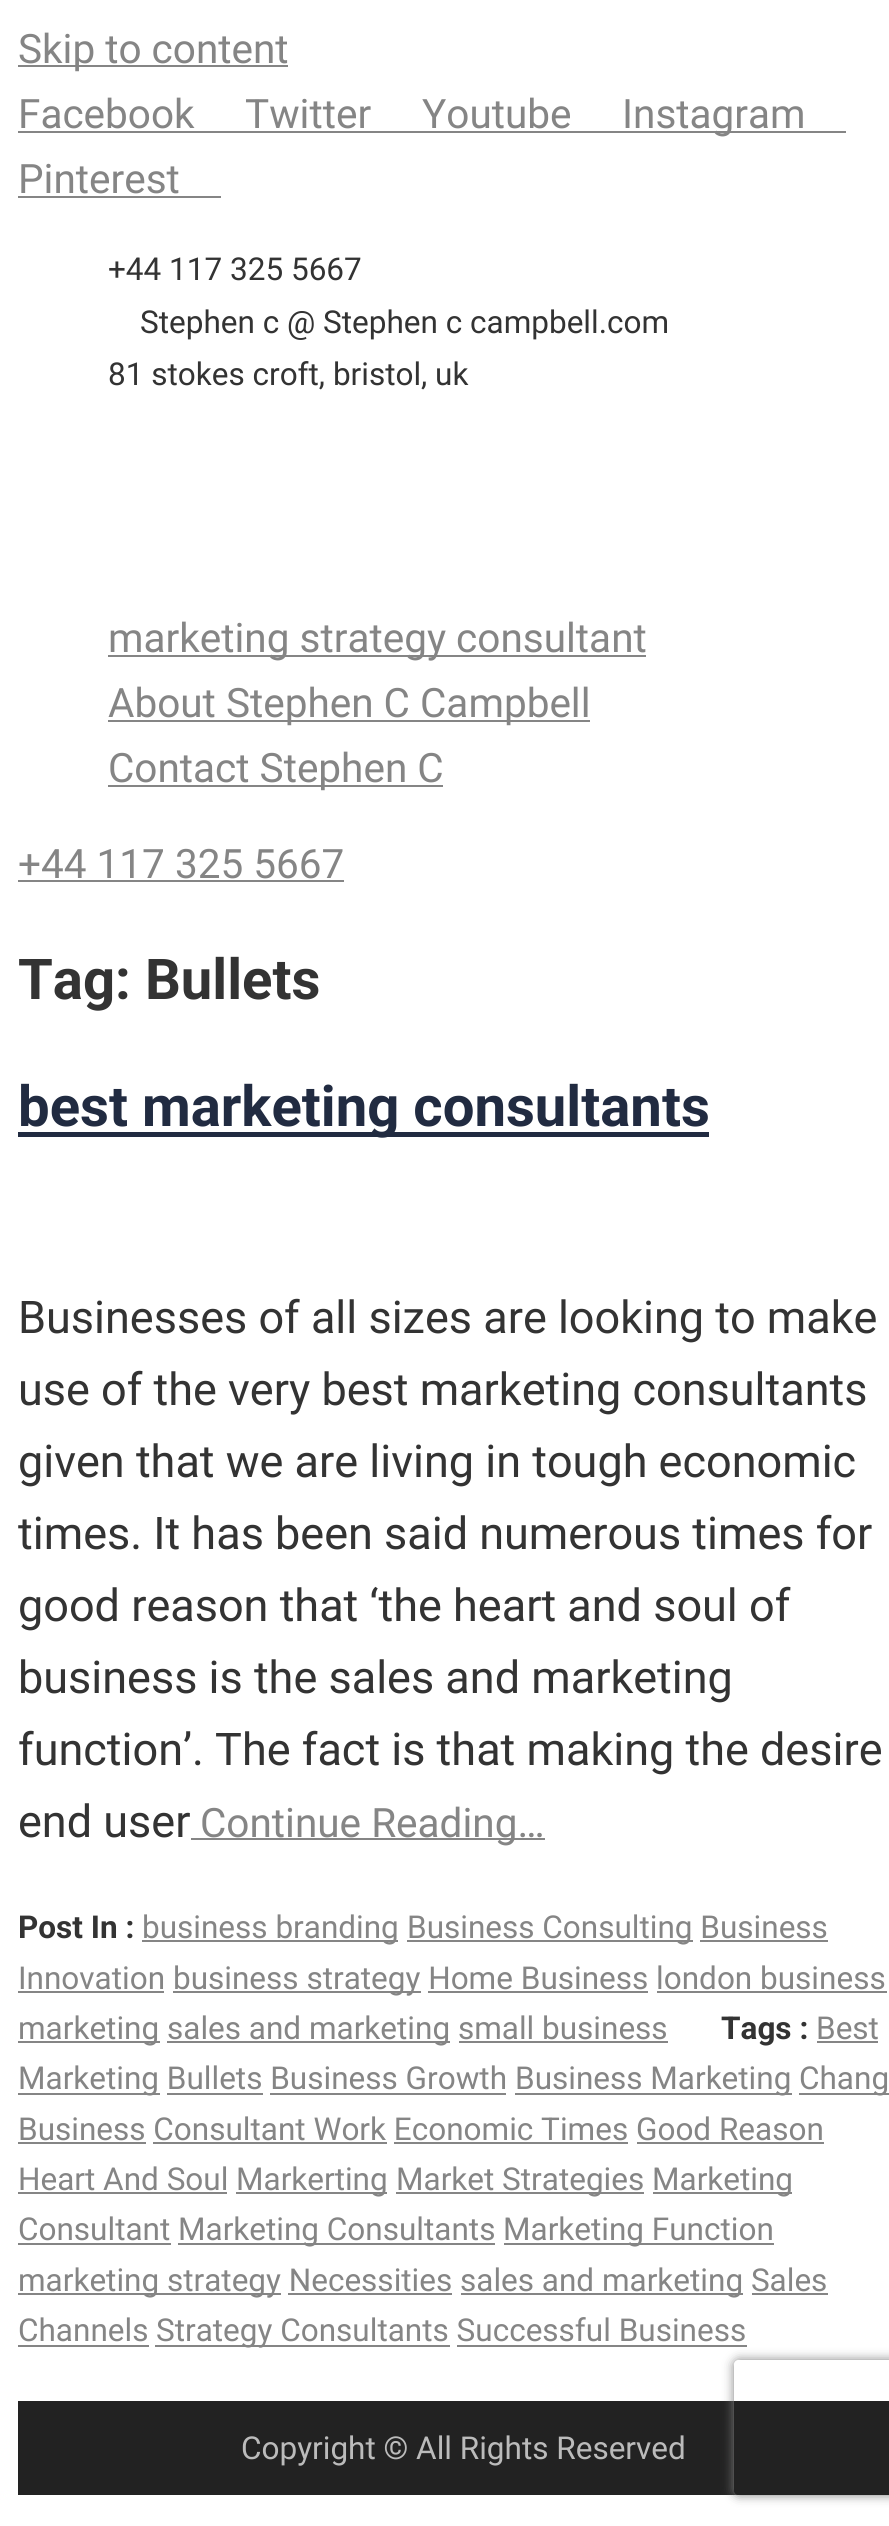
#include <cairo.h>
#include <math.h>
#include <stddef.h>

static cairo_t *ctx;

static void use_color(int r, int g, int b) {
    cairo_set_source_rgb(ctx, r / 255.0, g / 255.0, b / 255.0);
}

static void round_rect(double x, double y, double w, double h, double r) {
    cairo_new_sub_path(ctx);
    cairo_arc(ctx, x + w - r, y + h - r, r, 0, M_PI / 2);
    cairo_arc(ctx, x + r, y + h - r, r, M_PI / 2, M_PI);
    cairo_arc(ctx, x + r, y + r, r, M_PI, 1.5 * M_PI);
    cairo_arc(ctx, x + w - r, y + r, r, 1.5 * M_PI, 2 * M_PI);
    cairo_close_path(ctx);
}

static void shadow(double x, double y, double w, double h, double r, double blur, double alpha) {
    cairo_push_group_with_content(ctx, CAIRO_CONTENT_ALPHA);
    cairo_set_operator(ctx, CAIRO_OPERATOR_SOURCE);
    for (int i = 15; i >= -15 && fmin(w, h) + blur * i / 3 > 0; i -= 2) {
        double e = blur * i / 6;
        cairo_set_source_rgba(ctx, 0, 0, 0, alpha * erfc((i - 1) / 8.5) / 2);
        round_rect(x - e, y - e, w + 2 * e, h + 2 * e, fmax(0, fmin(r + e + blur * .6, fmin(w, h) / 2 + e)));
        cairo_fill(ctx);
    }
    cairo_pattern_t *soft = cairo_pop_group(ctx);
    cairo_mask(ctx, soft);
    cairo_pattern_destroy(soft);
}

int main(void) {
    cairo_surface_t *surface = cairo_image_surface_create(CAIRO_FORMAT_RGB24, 889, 2526);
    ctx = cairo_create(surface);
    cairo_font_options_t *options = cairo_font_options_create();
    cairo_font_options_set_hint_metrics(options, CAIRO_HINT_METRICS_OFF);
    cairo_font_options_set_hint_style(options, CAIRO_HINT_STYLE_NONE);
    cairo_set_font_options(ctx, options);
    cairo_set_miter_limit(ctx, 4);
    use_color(255, 255, 255);
    cairo_paint(ctx);
    use_color(133, 133, 133);
    cairo_rectangle(ctx, 18, 65, 270, 2);
    cairo_fill(ctx);
    cairo_select_font_face(ctx, "Roboto", CAIRO_FONT_SLANT_NORMAL, CAIRO_FONT_WEIGHT_NORMAL);
    cairo_set_font_size(ctx, 40.5);
    cairo_move_to(ctx, 18, 63);
    cairo_show_text(ctx, "Skip to content");
    cairo_move_to(ctx, 18, 128);
    cairo_show_text(ctx, "Facebook");
    cairo_rectangle(ctx, 18, 131, 828, 2);
    cairo_fill(ctx);
    cairo_move_to(ctx, 245, 128);
    cairo_show_text(ctx, "Twitter");
    cairo_move_to(ctx, 422, 128);
    cairo_show_text(ctx, "Youtube");
    cairo_move_to(ctx, 622, 128);
    cairo_show_text(ctx, "Instagram");
    cairo_move_to(ctx, 18, 193);
    cairo_show_text(ctx, "Pinterest");
    cairo_rectangle(ctx, 18, 196, 203, 2);
    cairo_fill(ctx);
    cairo_set_font_size(ctx, 31.5);
    use_color(51, 51, 51);
    cairo_move_to(ctx, 108, 280);
    cairo_show_text(ctx, "+44 117 325 5667");
    cairo_move_to(ctx, 140, 333);
    cairo_show_text(ctx, "Stephen c @ Stephen c campbell.com");
    cairo_move_to(ctx, 108, 385);
    cairo_show_text(ctx, "81 stokes croft, bristol, uk");
    use_color(133, 133, 133);
    cairo_rectangle(ctx, 108, 655, 538, 2);
    cairo_fill(ctx);
    cairo_set_font_size(ctx, 40.5);
    cairo_move_to(ctx, 108, 652);
    cairo_show_text(ctx, "marketing strategy consultant");
    cairo_rectangle(ctx, 108, 720, 482, 2);
    cairo_fill(ctx);
    cairo_move_to(ctx, 108, 717);
    cairo_show_text(ctx, "About Stephen C Campbell");
    cairo_rectangle(ctx, 108, 785, 335, 2);
    cairo_fill(ctx);
    cairo_move_to(ctx, 108, 782);
    cairo_show_text(ctx, "Contact Stephen C");
    cairo_move_to(ctx, 18, 878);
    cairo_show_text(ctx, "+44 117 325 5667");
    cairo_rectangle(ctx, 18, 880, 326, 2);
    cairo_fill(ctx);
    cairo_select_font_face(ctx, "Roboto", CAIRO_FONT_SLANT_NORMAL, CAIRO_FONT_WEIGHT_BOLD);
    cairo_set_font_size(ctx, 56.25);
    use_color(51, 51, 51);
    cairo_move_to(ctx, 18, 999);
    cairo_show_text(ctx, "Tag: Bullets");
    use_color(33, 43, 65);
    cairo_rectangle(ctx, 18, 1132, 691, 5);
    cairo_fill(ctx);
    cairo_move_to(ctx, 18, 1126);
    cairo_show_text(ctx, "best marketing consultants");
    cairo_select_font_face(ctx, "Roboto", CAIRO_FONT_SLANT_NORMAL, CAIRO_FONT_WEIGHT_NORMAL);
    cairo_set_font_size(ctx, 45);
    use_color(51, 51, 51);
    cairo_move_to(ctx, 18, 1333);
    cairo_show_text(ctx, "Businesses of all sizes are looking to make");
    cairo_move_to(ctx, 18, 1405);
    cairo_show_text(ctx, "use of the very best marketing consultants");
    cairo_move_to(ctx, 18, 1477);
    cairo_show_text(ctx, "given that we are living in tough economic");
    cairo_move_to(ctx, 18, 1549);
    cairo_show_text(ctx, "times. It has been said numerous times for");
    cairo_move_to(ctx, 18, 1621);
    cairo_show_text(ctx, "good reason that ‘the heart and soul of");
    cairo_move_to(ctx, 18, 1693);
    cairo_show_text(ctx, "business is the sales and marketing");
    cairo_move_to(ctx, 18, 1765);
    cairo_show_text(ctx, "function’. The fact is that making the desire");
    cairo_move_to(ctx, 18, 1837);
    cairo_show_text(ctx, "end user");
    use_color(133, 133, 133);
    cairo_rectangle(ctx, 191, 1838, 354, 2);
    cairo_fill(ctx);
    cairo_set_font_size(ctx, 40.5);
    cairo_move_to(ctx, 200, 1837);
    cairo_show_text(ctx, "Continue Reading…");
    cairo_select_font_face(ctx, "Roboto", CAIRO_FONT_SLANT_NORMAL, CAIRO_FONT_WEIGHT_BOLD);
    cairo_set_font_size(ctx, 31.5);
    use_color(51, 51, 51);
    cairo_move_to(ctx, 18, 1938);
    cairo_show_text(ctx, "Post In :");
    use_color(133, 133, 133);
    cairo_rectangle(ctx, 142, 1940, 256, 2);
    cairo_fill(ctx);
    cairo_select_font_face(ctx, "Roboto", CAIRO_FONT_SLANT_NORMAL, CAIRO_FONT_WEIGHT_NORMAL);
    cairo_move_to(ctx, 142, 1938);
    cairo_show_text(ctx, "business branding");
    cairo_rectangle(ctx, 407, 1940, 286, 2);
    cairo_fill(ctx);
    cairo_move_to(ctx, 407, 1938);
    cairo_show_text(ctx, "Business Consulting Business");
    cairo_rectangle(ctx, 700, 1940, 128, 2);
    cairo_fill(ctx);
    cairo_move_to(ctx, 18, 1989);
    cairo_show_text(ctx, "Innovation");
    cairo_rectangle(ctx, 18, 1991, 146, 2);
    cairo_fill(ctx);
    cairo_rectangle(ctx, 173, 1991, 248, 2);
    cairo_fill(ctx);
    cairo_move_to(ctx, 173, 1989);
    cairo_show_text(ctx, "business strategy Home Business london business");
    cairo_rectangle(ctx, 428, 1991, 220, 2);
    cairo_fill(ctx);
    cairo_rectangle(ctx, 657, 1991, 230, 2);
    cairo_fill(ctx);
    cairo_rectangle(ctx, 18, 2041, 142, 2);
    cairo_fill(ctx);
    cairo_move_to(ctx, 18, 2039);
    cairo_show_text(ctx, "marketing");
    cairo_rectangle(ctx, 167, 2041, 283, 2);
    cairo_fill(ctx);
    cairo_move_to(ctx, 167, 2039);
    cairo_show_text(ctx, "sales and marketing small business");
    cairo_rectangle(ctx, 459, 2041, 209, 2);
    cairo_fill(ctx);
    cairo_select_font_face(ctx, "Roboto", CAIRO_FONT_SLANT_NORMAL, CAIRO_FONT_WEIGHT_BOLD);
    use_color(51, 51, 51);
    cairo_move_to(ctx, 721, 2039);
    cairo_show_text(ctx, "Tags :");
    cairo_select_font_face(ctx, "Roboto", CAIRO_FONT_SLANT_NORMAL, CAIRO_FONT_WEIGHT_NORMAL);
    use_color(133, 133, 133);
    cairo_move_to(ctx, 816, 2039);
    cairo_show_text(ctx, "Best");
    cairo_rectangle(ctx, 817, 2041, 61, 2);
    cairo_fill(ctx);
    cairo_rectangle(ctx, 18, 2093, 142, 2);
    cairo_fill(ctx);
    cairo_move_to(ctx, 18, 2089);
    cairo_show_text(ctx, "Marketing Bullets Business Growth");
    cairo_rectangle(ctx, 167, 2093, 96, 2);
    cairo_fill(ctx);
    cairo_rectangle(ctx, 270, 2093, 236, 2);
    cairo_fill(ctx);
    cairo_rectangle(ctx, 515, 2093, 277, 2);
    cairo_fill(ctx);
    cairo_move_to(ctx, 515, 2089);
    cairo_show_text(ctx, "Business Marketing");
    cairo_rectangle(ctx, 799, 2093, 90, 2);
    cairo_fill(ctx);
    cairo_move_to(ctx, 799, 2089);
    cairo_show_text(ctx, "Chang");
    cairo_move_to(ctx, 18, 2140);
    cairo_show_text(ctx, "Business Consultant Work Economic Times Good Reason");
    cairo_rectangle(ctx, 18, 2142, 128, 2);
    cairo_fill(ctx);
    cairo_rectangle(ctx, 153, 2142, 234, 2);
    cairo_fill(ctx);
    cairo_rectangle(ctx, 394, 2142, 234, 2);
    cairo_fill(ctx);
    cairo_rectangle(ctx, 637, 2142, 187, 2);
    cairo_fill(ctx);
    cairo_move_to(ctx, 18, 2190);
    cairo_show_text(ctx, "Heart And Soul");
    cairo_rectangle(ctx, 18, 2192, 209, 2);
    cairo_fill(ctx);
    cairo_rectangle(ctx, 236, 2192, 151, 2);
    cairo_fill(ctx);
    cairo_move_to(ctx, 236, 2190);
    cairo_show_text(ctx, "Markerting");
    cairo_rectangle(ctx, 396, 2192, 248, 2);
    cairo_fill(ctx);
    cairo_move_to(ctx, 396, 2190);
    cairo_show_text(ctx, "Market Strategies");
    cairo_rectangle(ctx, 653, 2192, 139, 2);
    cairo_fill(ctx);
    cairo_move_to(ctx, 652, 2190);
    cairo_show_text(ctx, "Marketing");
    cairo_move_to(ctx, 18, 2240);
    cairo_show_text(ctx, "Consultant");
    cairo_rectangle(ctx, 18, 2243, 153, 2);
    cairo_fill(ctx);
    cairo_rectangle(ctx, 178, 2243, 317, 2);
    cairo_fill(ctx);
    cairo_move_to(ctx, 178, 2240);
    cairo_show_text(ctx, "Marketing Consultants");
    cairo_rectangle(ctx, 504, 2243, 270, 2);
    cairo_fill(ctx);
    cairo_move_to(ctx, 503, 2240);
    cairo_show_text(ctx, "Marketing Function");
    cairo_rectangle(ctx, 18, 2293, 263, 2);
    cairo_fill(ctx);
    cairo_move_to(ctx, 18, 2291);
    cairo_show_text(ctx, "marketing strategy Necessities");
    cairo_rectangle(ctx, 288, 2293, 164, 2);
    cairo_fill(ctx);
    cairo_rectangle(ctx, 461, 2293, 282, 2);
    cairo_fill(ctx);
    cairo_move_to(ctx, 460, 2291);
    cairo_show_text(ctx, "sales and marketing Sales");
    cairo_rectangle(ctx, 752, 2293, 76, 2);
    cairo_fill(ctx);
    cairo_move_to(ctx, 18, 2341);
    cairo_show_text(ctx, "Channels");
    cairo_rectangle(ctx, 18, 2345, 131, 2);
    cairo_fill(ctx);
    cairo_rectangle(ctx, 155, 2345, 295, 2);
    cairo_fill(ctx);
    cairo_move_to(ctx, 156, 2341);
    cairo_show_text(ctx, "Strategy Consultants Successful Business");
    cairo_rectangle(ctx, 457, 2345, 290, 2);
    cairo_fill(ctx);
    use_color(34, 34, 34);
    cairo_rectangle(ctx, 18, 2401, 871, 94);
    cairo_fill(ctx);
    use_color(187, 187, 187);
    cairo_move_to(ctx, 241, 2459);
    cairo_show_text(ctx, "Copyright © All Rights Reserved");
    cairo_save(ctx);
    cairo_set_fill_rule(ctx, CAIRO_FILL_RULE_EVEN_ODD);
    cairo_new_path(ctx);
    cairo_move_to(ctx, 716, 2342);
    cairo_line_to(ctx, 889, 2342);
    cairo_line_to(ctx, 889, 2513);
    cairo_line_to(ctx, 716, 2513);
    cairo_close_path(ctx);
    cairo_move_to(ctx, 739, 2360);
    cairo_line_to(ctx, 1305, 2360);
    cairo_curve_to(ctx, 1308, 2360, 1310, 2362, 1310, 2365);
    cairo_line_to(ctx, 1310, 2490);
    cairo_curve_to(ctx, 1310, 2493, 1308, 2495, 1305, 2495);
    cairo_line_to(ctx, 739, 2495);
    cairo_curve_to(ctx, 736, 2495, 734, 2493, 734, 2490);
    cairo_line_to(ctx, 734, 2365);
    cairo_curve_to(ctx, 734, 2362, 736, 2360, 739, 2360);
    cairo_close_path(ctx);
    cairo_clip(ctx);
    use_color(128, 128, 128);
    shadow(734, 2360, 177, 135, 5, 5.5, 1);
    cairo_restore(ctx);
    cairo_surface_write_to_png(surface, "result.png");
    cairo_font_options_destroy(options);
    cairo_destroy(ctx);
    cairo_surface_destroy(surface);
    return 0;
}
